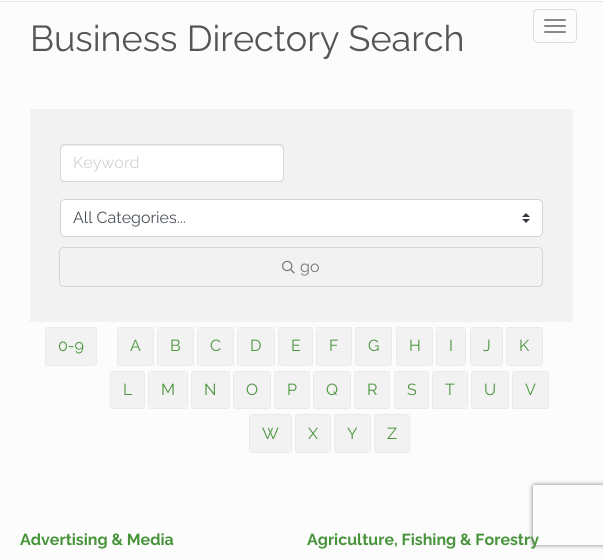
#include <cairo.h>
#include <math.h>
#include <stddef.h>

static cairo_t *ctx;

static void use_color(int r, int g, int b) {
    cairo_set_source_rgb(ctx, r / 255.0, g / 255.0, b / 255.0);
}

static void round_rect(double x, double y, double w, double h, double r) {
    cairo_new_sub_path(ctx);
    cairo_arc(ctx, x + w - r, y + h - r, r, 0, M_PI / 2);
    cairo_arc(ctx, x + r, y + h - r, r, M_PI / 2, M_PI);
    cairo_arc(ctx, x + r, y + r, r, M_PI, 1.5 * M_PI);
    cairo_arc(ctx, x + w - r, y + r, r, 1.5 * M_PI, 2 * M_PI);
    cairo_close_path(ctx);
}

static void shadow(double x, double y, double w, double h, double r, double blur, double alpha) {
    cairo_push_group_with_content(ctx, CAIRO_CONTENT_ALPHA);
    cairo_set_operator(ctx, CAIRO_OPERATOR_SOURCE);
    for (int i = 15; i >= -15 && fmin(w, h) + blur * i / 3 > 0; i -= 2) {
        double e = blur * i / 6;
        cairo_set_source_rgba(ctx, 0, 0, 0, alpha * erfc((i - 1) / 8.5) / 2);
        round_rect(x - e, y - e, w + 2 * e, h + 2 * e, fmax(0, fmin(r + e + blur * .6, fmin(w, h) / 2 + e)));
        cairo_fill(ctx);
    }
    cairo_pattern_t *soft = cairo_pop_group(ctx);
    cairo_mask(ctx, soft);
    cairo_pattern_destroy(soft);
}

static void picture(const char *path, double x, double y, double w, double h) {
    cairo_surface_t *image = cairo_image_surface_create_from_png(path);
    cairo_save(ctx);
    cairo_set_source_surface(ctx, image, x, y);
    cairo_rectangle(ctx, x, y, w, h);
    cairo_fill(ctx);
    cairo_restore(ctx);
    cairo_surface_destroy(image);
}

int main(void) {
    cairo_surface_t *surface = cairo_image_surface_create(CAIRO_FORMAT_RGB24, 603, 559);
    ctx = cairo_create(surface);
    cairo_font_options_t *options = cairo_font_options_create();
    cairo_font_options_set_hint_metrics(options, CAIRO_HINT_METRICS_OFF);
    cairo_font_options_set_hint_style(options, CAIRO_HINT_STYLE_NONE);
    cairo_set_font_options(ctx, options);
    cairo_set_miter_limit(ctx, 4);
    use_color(252, 252, 252);
    cairo_paint(ctx);
    use_color(255, 255, 255);
    cairo_rectangle(ctx, 0, 0, 603, 1);
    cairo_fill(ctx);
    use_color(230, 230, 230);
    cairo_rectangle(ctx, 0, 1, 603, 1);
    cairo_fill(ctx);
    round_rect(533.5, 9.5, 43, 33, 3.5);
    use_color(221, 221, 221);
    cairo_set_line_width(ctx, 1);
    cairo_stroke(ctx);
    use_color(136, 136, 136);
    round_rect(544, 19, 22, 2, 1);
    cairo_fill(ctx);
    round_rect(544, 25, 22, 2, 1);
    cairo_fill(ctx);
    round_rect(544, 31, 22, 2, 1);
    cairo_fill(ctx);
    cairo_select_font_face(ctx, "Raleway", CAIRO_FONT_SLANT_NORMAL, CAIRO_FONT_WEIGHT_NORMAL);
    cairo_set_font_size(ctx, 36);
    use_color(85, 85, 85);
    cairo_move_to(ctx, 30, 51);
    cairo_show_text(ctx, "Business Directory Search");
    use_color(242, 242, 242);
    cairo_rectangle(ctx, 30, 109, 543, 213);
    cairo_fill(ctx);
    use_color(255, 255, 255);
    round_rect(61, 145, 222, 36, 4);
    cairo_fill(ctx);
    cairo_set_source_rgba(ctx, 0, 0, 0, 0.07);
    cairo_new_path(ctx);
    cairo_move_to(ctx, 65, 146);
    cairo_line_to(ctx, 279, 146);
    cairo_curve_to(ctx, 281, 146, 283, 148, 283, 150);
    cairo_curve_to(ctx, 283, 147, 282, 145, 279, 145);
    cairo_line_to(ctx, 65, 145);
    cairo_curve_to(ctx, 62, 145, 61, 147, 61, 150);
    cairo_curve_to(ctx, 61, 148, 63, 146, 65, 146);
    cairo_close_path(ctx);
    cairo_fill(ctx);
    round_rect(60.5, 144.5, 223, 37, 4.5);
    cairo_set_source_rgba(ctx, 0, 0, 0, 0.12);
    cairo_stroke(ctx);
    cairo_set_font_size(ctx, 16);
    use_color(210, 210, 210);
    cairo_move_to(ctx, 73, 168);
    cairo_show_text(ctx, "Keyword");
    use_color(255, 255, 255);
    round_rect(60, 199, 483, 38, 5);
    cairo_fill(ctx);
    picture("img1.png", 522, 213, 8, 10);
    round_rect(60.5, 199.5, 482, 37, 4.5);
    use_color(206, 212, 218);
    cairo_stroke(ctx);
    use_color(73, 80, 87);
    cairo_move_to(ctx, 73, 223);
    cairo_show_text(ctx, "All Categories...");
    round_rect(59.5, 247.5, 483, 39, 4.5);
    use_color(213, 213, 213);
    cairo_stroke(ctx);
    picture("img2.png", 282, 260, 13, 14);
    use_color(119, 119, 119);
    cairo_move_to(ctx, 300, 272);
    cairo_show_text(ctx, "go");
    use_color(242, 242, 242);
    round_rect(45, 327, 52, 39, 5);
    cairo_fill(ctx);
    cairo_rectangle(ctx, 45.5, 327.5, 51, 38);
    cairo_set_source_rgba(ctx, 0, 0, 0, 0.04);
    cairo_stroke(ctx);
    use_color(72, 148, 59);
    cairo_move_to(ctx, 58, 351);
    cairo_show_text(ctx, "0-9");
    use_color(242, 242, 242);
    round_rect(117, 327, 37, 39, 5);
    cairo_fill(ctx);
    cairo_rectangle(ctx, 117.5, 327.5, 36, 38);
    cairo_set_source_rgba(ctx, 0, 0, 0, 0.04);
    cairo_stroke(ctx);
    use_color(72, 148, 59);
    cairo_move_to(ctx, 130, 351);
    cairo_show_text(ctx, "A");
    use_color(242, 242, 242);
    round_rect(157, 327, 37, 39, 5);
    cairo_fill(ctx);
    cairo_rectangle(ctx, 157.5, 327.5, 36, 38);
    cairo_set_source_rgba(ctx, 0, 0, 0, 0.04);
    cairo_stroke(ctx);
    use_color(72, 148, 59);
    cairo_move_to(ctx, 170, 351);
    cairo_show_text(ctx, "B");
    use_color(242, 242, 242);
    round_rect(197, 327, 37, 39, 5);
    cairo_fill(ctx);
    cairo_rectangle(ctx, 197.5, 327.5, 36, 38);
    cairo_set_source_rgba(ctx, 0, 0, 0, 0.04);
    cairo_stroke(ctx);
    use_color(72, 148, 59);
    cairo_move_to(ctx, 210, 351);
    cairo_show_text(ctx, "C");
    use_color(242, 242, 242);
    round_rect(237, 327, 38, 39, 5);
    cairo_fill(ctx);
    cairo_rectangle(ctx, 237.5, 327.5, 37, 38);
    cairo_set_source_rgba(ctx, 0, 0, 0, 0.04);
    cairo_stroke(ctx);
    use_color(72, 148, 59);
    cairo_move_to(ctx, 250, 351);
    cairo_show_text(ctx, "D");
    use_color(242, 242, 242);
    round_rect(278, 327, 35, 39, 5);
    cairo_fill(ctx);
    cairo_rectangle(ctx, 278.5, 327.5, 34, 38);
    cairo_set_source_rgba(ctx, 0, 0, 0, 0.04);
    cairo_stroke(ctx);
    use_color(72, 148, 59);
    cairo_move_to(ctx, 291, 351);
    cairo_show_text(ctx, "E");
    use_color(242, 242, 242);
    round_rect(316, 327, 36, 39, 5);
    cairo_fill(ctx);
    cairo_rectangle(ctx, 316.5, 327.5, 35, 38);
    cairo_set_source_rgba(ctx, 0, 0, 0, 0.04);
    cairo_stroke(ctx);
    use_color(72, 148, 59);
    cairo_move_to(ctx, 329, 351);
    cairo_show_text(ctx, "F");
    use_color(242, 242, 242);
    round_rect(355, 327, 37, 39, 5);
    cairo_fill(ctx);
    cairo_rectangle(ctx, 355.5, 327.5, 36, 38);
    cairo_set_source_rgba(ctx, 0, 0, 0, 0.04);
    cairo_stroke(ctx);
    use_color(72, 148, 59);
    cairo_move_to(ctx, 368, 351);
    cairo_show_text(ctx, "G");
    use_color(242, 242, 242);
    round_rect(396, 327, 37, 39, 5);
    cairo_fill(ctx);
    cairo_rectangle(ctx, 396.5, 327.5, 36, 38);
    cairo_set_source_rgba(ctx, 0, 0, 0, 0.04);
    cairo_stroke(ctx);
    use_color(72, 148, 59);
    cairo_move_to(ctx, 409, 351);
    cairo_show_text(ctx, "H");
    use_color(242, 242, 242);
    round_rect(436, 327, 30, 39, 5);
    cairo_fill(ctx);
    cairo_rectangle(ctx, 436.5, 327.5, 29, 38);
    cairo_set_source_rgba(ctx, 0, 0, 0, 0.04);
    cairo_stroke(ctx);
    use_color(72, 148, 59);
    cairo_move_to(ctx, 449, 351);
    cairo_show_text(ctx, "I");
    use_color(242, 242, 242);
    round_rect(470, 327, 33, 39, 5);
    cairo_fill(ctx);
    cairo_rectangle(ctx, 470.5, 327.5, 32, 38);
    cairo_set_source_rgba(ctx, 0, 0, 0, 0.04);
    cairo_stroke(ctx);
    use_color(72, 148, 59);
    cairo_move_to(ctx, 483, 351);
    cairo_show_text(ctx, "J");
    use_color(242, 242, 242);
    round_rect(506, 327, 37, 39, 5);
    cairo_fill(ctx);
    cairo_rectangle(ctx, 506.5, 327.5, 36, 38);
    cairo_set_source_rgba(ctx, 0, 0, 0, 0.04);
    cairo_stroke(ctx);
    use_color(72, 148, 59);
    cairo_move_to(ctx, 519, 351);
    cairo_show_text(ctx, "K");
    use_color(242, 242, 242);
    round_rect(110, 371, 35, 38, 5);
    cairo_fill(ctx);
    cairo_rectangle(ctx, 110.5, 371.5, 34, 37);
    cairo_set_source_rgba(ctx, 0, 0, 0, 0.04);
    cairo_stroke(ctx);
    use_color(72, 148, 59);
    cairo_move_to(ctx, 123, 395);
    cairo_show_text(ctx, "L");
    use_color(242, 242, 242);
    round_rect(148, 371, 40, 38, 5);
    cairo_fill(ctx);
    cairo_rectangle(ctx, 148.5, 371.5, 39, 37);
    cairo_set_source_rgba(ctx, 0, 0, 0, 0.04);
    cairo_stroke(ctx);
    use_color(72, 148, 59);
    cairo_move_to(ctx, 161, 395);
    cairo_show_text(ctx, "M");
    use_color(242, 242, 242);
    round_rect(191, 371, 39, 38, 5);
    cairo_fill(ctx);
    cairo_rectangle(ctx, 191.5, 371.5, 38, 37);
    cairo_set_source_rgba(ctx, 0, 0, 0, 0.04);
    cairo_stroke(ctx);
    use_color(72, 148, 59);
    cairo_move_to(ctx, 204, 395);
    cairo_show_text(ctx, "N");
    use_color(242, 242, 242);
    round_rect(233, 371, 38, 38, 5);
    cairo_fill(ctx);
    cairo_rectangle(ctx, 233.5, 371.5, 37, 37);
    cairo_set_source_rgba(ctx, 0, 0, 0, 0.04);
    cairo_stroke(ctx);
    use_color(72, 148, 59);
    cairo_move_to(ctx, 246, 395);
    cairo_show_text(ctx, "O");
    use_color(242, 242, 242);
    round_rect(274, 371, 36, 38, 5);
    cairo_fill(ctx);
    cairo_rectangle(ctx, 274.5, 371.5, 35, 37);
    cairo_set_source_rgba(ctx, 0, 0, 0, 0.04);
    cairo_stroke(ctx);
    use_color(72, 148, 59);
    cairo_move_to(ctx, 287, 395);
    cairo_show_text(ctx, "P");
    use_color(242, 242, 242);
    round_rect(313, 371, 38, 38, 5);
    cairo_fill(ctx);
    cairo_rectangle(ctx, 313.5, 371.5, 37, 37);
    cairo_set_source_rgba(ctx, 0, 0, 0, 0.04);
    cairo_stroke(ctx);
    use_color(72, 148, 59);
    cairo_move_to(ctx, 326, 395);
    cairo_show_text(ctx, "Q");
    use_color(242, 242, 242);
    round_rect(354, 371, 36, 38, 5);
    cairo_fill(ctx);
    cairo_rectangle(ctx, 354.5, 371.5, 35, 37);
    cairo_set_source_rgba(ctx, 0, 0, 0, 0.04);
    cairo_stroke(ctx);
    use_color(72, 148, 59);
    cairo_move_to(ctx, 367, 395);
    cairo_show_text(ctx, "R");
    use_color(242, 242, 242);
    round_rect(394, 371, 35, 38, 5);
    cairo_fill(ctx);
    cairo_rectangle(ctx, 394.5, 371.5, 34, 37);
    cairo_set_source_rgba(ctx, 0, 0, 0, 0.04);
    cairo_stroke(ctx);
    use_color(72, 148, 59);
    cairo_move_to(ctx, 407, 395);
    cairo_show_text(ctx, "S");
    use_color(242, 242, 242);
    round_rect(432, 371, 36, 38, 5);
    cairo_fill(ctx);
    cairo_rectangle(ctx, 432.5, 371.5, 35, 37);
    cairo_set_source_rgba(ctx, 0, 0, 0, 0.04);
    cairo_stroke(ctx);
    use_color(72, 148, 59);
    cairo_move_to(ctx, 445, 395);
    cairo_show_text(ctx, "T");
    use_color(242, 242, 242);
    round_rect(471, 371, 38, 38, 5);
    cairo_fill(ctx);
    cairo_rectangle(ctx, 471.5, 371.5, 37, 37);
    cairo_set_source_rgba(ctx, 0, 0, 0, 0.04);
    cairo_stroke(ctx);
    use_color(72, 148, 59);
    cairo_move_to(ctx, 484, 395);
    cairo_show_text(ctx, "U");
    use_color(242, 242, 242);
    round_rect(512, 371, 37, 38, 5);
    cairo_fill(ctx);
    cairo_rectangle(ctx, 512.5, 371.5, 36, 37);
    cairo_set_source_rgba(ctx, 0, 0, 0, 0.04);
    cairo_stroke(ctx);
    use_color(72, 148, 59);
    cairo_move_to(ctx, 525, 395);
    cairo_show_text(ctx, "V");
    use_color(242, 242, 242);
    round_rect(249, 414, 43, 39, 5);
    cairo_fill(ctx);
    cairo_rectangle(ctx, 249.5, 414.5, 42, 38);
    cairo_set_source_rgba(ctx, 0, 0, 0, 0.04);
    cairo_stroke(ctx);
    use_color(72, 148, 59);
    cairo_move_to(ctx, 262, 439);
    cairo_show_text(ctx, "W");
    use_color(242, 242, 242);
    round_rect(295, 414, 36, 39, 5);
    cairo_fill(ctx);
    cairo_rectangle(ctx, 295.5, 414.5, 35, 38);
    cairo_set_source_rgba(ctx, 0, 0, 0, 0.04);
    cairo_stroke(ctx);
    use_color(72, 148, 59);
    cairo_move_to(ctx, 308, 439);
    cairo_show_text(ctx, "X");
    use_color(242, 242, 242);
    round_rect(334, 414, 37, 39, 5);
    cairo_fill(ctx);
    cairo_rectangle(ctx, 334.5, 414.5, 36, 38);
    cairo_set_source_rgba(ctx, 0, 0, 0, 0.04);
    cairo_stroke(ctx);
    use_color(72, 148, 59);
    cairo_move_to(ctx, 347, 439);
    cairo_show_text(ctx, "Y");
    use_color(242, 242, 242);
    round_rect(374, 414, 36, 39, 5);
    cairo_fill(ctx);
    cairo_rectangle(ctx, 374.5, 414.5, 35, 38);
    cairo_set_source_rgba(ctx, 0, 0, 0, 0.04);
    cairo_stroke(ctx);
    use_color(72, 148, 59);
    cairo_move_to(ctx, 387, 439);
    cairo_show_text(ctx, "Z");
    cairo_select_font_face(ctx, "Raleway", CAIRO_FONT_SLANT_NORMAL, CAIRO_FONT_WEIGHT_BOLD);
    cairo_move_to(ctx, 20, 545);
    cairo_show_text(ctx, "Advertising & Media");
    cairo_move_to(ctx, 307, 545);
    cairo_show_text(ctx, "Agriculture, Fishing & Forestry");
    cairo_save(ctx);
    cairo_set_fill_rule(ctx, CAIRO_FILL_RULE_EVEN_ODD);
    cairo_new_path(ctx);
    cairo_move_to(ctx, 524, 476);
    cairo_line_to(ctx, 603, 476);
    cairo_line_to(ctx, 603, 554);
    cairo_line_to(ctx, 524, 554);
    cairo_close_path(ctx);
    cairo_move_to(ctx, 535, 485);
    cairo_line_to(ctx, 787, 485);
    cairo_curve_to(ctx, 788, 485, 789, 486, 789, 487);
    cairo_line_to(ctx, 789, 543);
    cairo_curve_to(ctx, 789, 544, 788, 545, 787, 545);
    cairo_line_to(ctx, 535, 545);
    cairo_curve_to(ctx, 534, 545, 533, 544, 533, 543);
    cairo_line_to(ctx, 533, 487);
    cairo_curve_to(ctx, 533, 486, 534, 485, 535, 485);
    cairo_close_path(ctx);
    cairo_clip(ctx);
    use_color(128, 128, 128);
    shadow(533, 485, 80, 60, 2, 2.5, 1);
    cairo_restore(ctx);
    cairo_surface_write_to_png(surface, "result.png");
    cairo_font_options_destroy(options);
    cairo_destroy(ctx);
    cairo_surface_destroy(surface);
    return 0;
}
